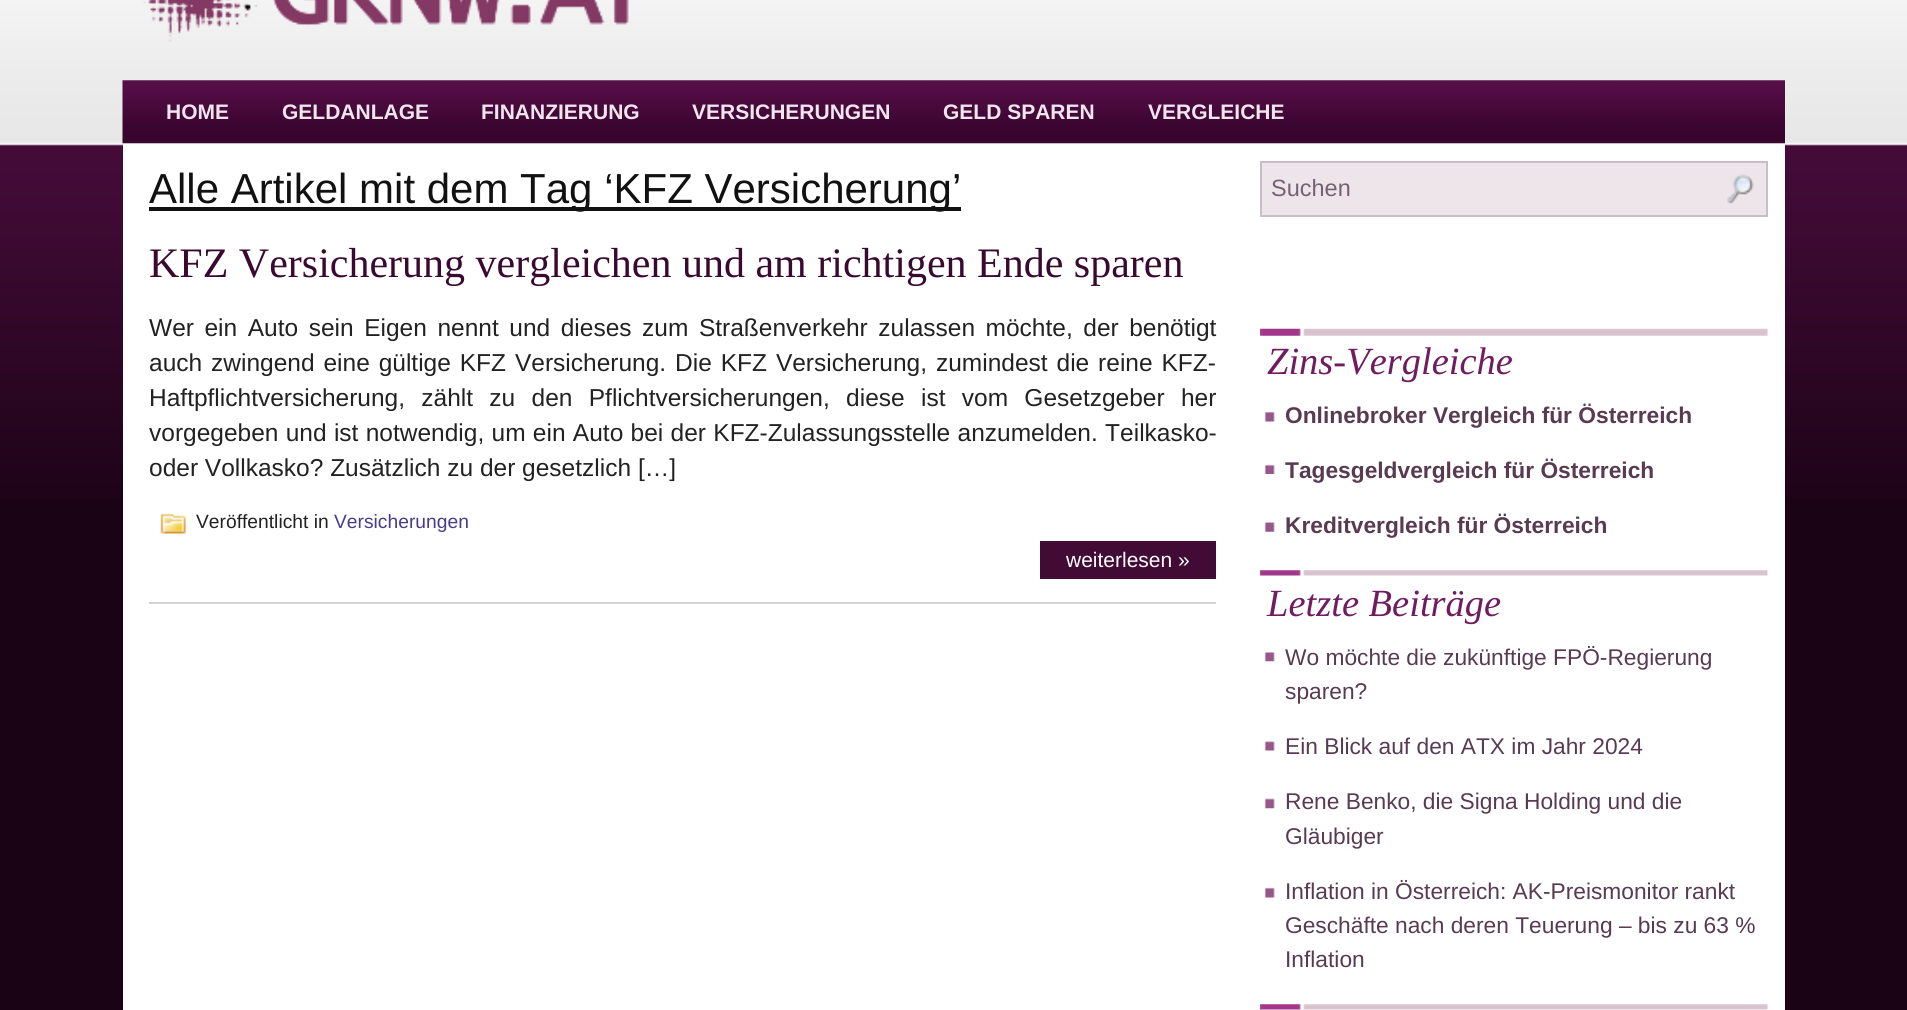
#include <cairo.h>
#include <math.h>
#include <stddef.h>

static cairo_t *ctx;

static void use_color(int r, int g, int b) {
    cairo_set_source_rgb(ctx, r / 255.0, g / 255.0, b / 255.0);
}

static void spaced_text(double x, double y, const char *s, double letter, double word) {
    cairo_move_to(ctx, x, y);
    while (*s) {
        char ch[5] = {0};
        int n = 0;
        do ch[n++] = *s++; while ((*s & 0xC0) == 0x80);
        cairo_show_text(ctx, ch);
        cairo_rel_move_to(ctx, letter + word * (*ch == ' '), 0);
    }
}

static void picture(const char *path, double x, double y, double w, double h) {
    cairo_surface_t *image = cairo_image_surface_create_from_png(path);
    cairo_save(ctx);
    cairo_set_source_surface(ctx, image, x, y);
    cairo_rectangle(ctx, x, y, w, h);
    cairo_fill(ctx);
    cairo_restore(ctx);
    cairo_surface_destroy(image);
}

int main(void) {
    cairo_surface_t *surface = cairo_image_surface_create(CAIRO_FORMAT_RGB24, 1907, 1010);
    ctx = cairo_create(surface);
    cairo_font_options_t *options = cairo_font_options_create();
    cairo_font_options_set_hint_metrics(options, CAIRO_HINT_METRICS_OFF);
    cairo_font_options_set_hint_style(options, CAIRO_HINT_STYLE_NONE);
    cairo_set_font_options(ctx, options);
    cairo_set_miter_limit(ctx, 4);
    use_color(26, 3, 21);
    cairo_paint(ctx);
    picture("img1.png", 0, 0, 1907, 497);
    picture("img2.png", 143, 0, 486, 42);
    picture("img3.png", 122, 80, 1663, 64);
    cairo_select_font_face(ctx, "Liberation Sans", CAIRO_FONT_SLANT_NORMAL, CAIRO_FONT_WEIGHT_BOLD);
    cairo_set_font_size(ctx, 21);
    use_color(239, 229, 237);
    cairo_move_to(ctx, 166, 119);
    cairo_show_text(ctx, "HOME");
    cairo_move_to(ctx, 282, 119);
    cairo_show_text(ctx, "GELDANLAGE");
    cairo_move_to(ctx, 481, 119);
    cairo_show_text(ctx, "FINANZIERUNG");
    cairo_move_to(ctx, 692, 119);
    cairo_show_text(ctx, "VERSICHERUNGEN");
    cairo_move_to(ctx, 943, 119);
    cairo_show_text(ctx, "GELD SPAREN");
    cairo_move_to(ctx, 1148, 119);
    cairo_show_text(ctx, "VERGLEICHE");
    use_color(255, 255, 255);
    cairo_rectangle(ctx, 123, 144, 1662, 866);
    cairo_fill(ctx);
    use_color(17, 17, 17);
    cairo_rectangle(ctx, 149, 207, 812, 4);
    cairo_fill(ctx);
    cairo_select_font_face(ctx, "Liberation Sans", CAIRO_FONT_SLANT_NORMAL, CAIRO_FONT_WEIGHT_NORMAL);
    cairo_set_font_size(ctx, 42);
    cairo_move_to(ctx, 149, 203);
    cairo_show_text(ctx, "Alle Artikel mit dem Tag ‘KFZ Versicherung’");
    use_color(210, 212, 213);
    cairo_rectangle(ctx, 149, 602, 1067, 2);
    cairo_fill(ctx);
    cairo_select_font_face(ctx, "Liberation Serif", CAIRO_FONT_SLANT_NORMAL, CAIRO_FONT_WEIGHT_NORMAL);
    use_color(58, 9, 48);
    cairo_move_to(ctx, 149, 277);
    cairo_show_text(ctx, "KFZ Versicherung vergleichen und am richtigen Ende sparen");
    cairo_select_font_face(ctx, "Liberation Sans", CAIRO_FONT_SLANT_NORMAL, CAIRO_FONT_WEIGHT_NORMAL);
    cairo_set_font_size(ctx, 24.5);
    use_color(34, 34, 34);
    spaced_text(149, 336, "Wer ein Auto sein Eigen nennt und dieses zum Straßenverkehr zulassen möchte, der benötigt", 0, 3.75);
    spaced_text(149, 371, "auch zwingend eine gültige KFZ Versicherung. Die KFZ Versicherung, zumindest die reine KFZ-", 0, 2.1);
    spaced_text(149, 406, "Haftpflichtversicherung, zählt zu den Pflichtversicherungen, diese ist vom Gesetzgeber her", 0, 9.5);
    spaced_text(149, 441, "vorgegeben und ist notwendig, um ein Auto bei der KFZ-Zulassungsstelle anzumelden. Teilkasko-", 0, 0.5);
    cairo_move_to(ctx, 149, 476);
    cairo_show_text(ctx, "oder Vollkasko? Zusätzlich zu der gesetzlich […]");
    picture("img4.png", 160, 513, 26, 21);
    cairo_set_font_size(ctx, 19.25);
    cairo_move_to(ctx, 196, 528);
    cairo_show_text(ctx, "Veröffentlicht in");
    use_color(72, 61, 139);
    cairo_move_to(ctx, 334, 528);
    cairo_show_text(ctx, "Versicherungen");
    use_color(65, 11, 54);
    cairo_rectangle(ctx, 1040, 541, 176, 38);
    cairo_fill(ctx);
    cairo_set_font_size(ctx, 21);
    use_color(255, 255, 255);
    cairo_move_to(ctx, 1066, 567);
    cairo_show_text(ctx, "weiterlesen »");
    use_color(237, 229, 233);
    cairo_rectangle(ctx, 1261, 162, 506, 54);
    cairo_fill_preserve(ctx);
    use_color(200, 191, 198);
    cairo_stroke(ctx);
    cairo_set_font_size(ctx, 23.5);
    use_color(120, 96, 116);
    cairo_move_to(ctx, 1271, 196);
    cairo_show_text(ctx, "Suchen");
    picture("img5.png", 1727, 174, 27, 30);
    picture("img6.png", 1260, 328, 508, 8);
    cairo_select_font_face(ctx, "Liberation Serif", CAIRO_FONT_SLANT_ITALIC, CAIRO_FONT_WEIGHT_NORMAL);
    cairo_set_font_size(ctx, 38.5);
    use_color(112, 28, 96);
    cairo_move_to(ctx, 1267, 374);
    cairo_show_text(ctx, "Zins-Vergleiche");
    picture("img7.png", 1264, 411, 11, 11);
    cairo_select_font_face(ctx, "Liberation Sans", CAIRO_FONT_SLANT_NORMAL, CAIRO_FONT_WEIGHT_BOLD);
    cairo_set_font_size(ctx, 22.75);
    use_color(88, 59, 82);
    cairo_move_to(ctx, 1285, 423);
    cairo_show_text(ctx, "Onlinebroker Vergleich für Österreich");
    picture("img8.png", 1264, 464, 11, 10);
    cairo_move_to(ctx, 1285, 478);
    cairo_show_text(ctx, "Tagesgeldvergleich für Österreich");
    picture("img9.png", 1264, 522, 11, 10);
    cairo_move_to(ctx, 1285, 533);
    cairo_show_text(ctx, "Kreditvergleich für Österreich");
    picture("img10.png", 1260, 570, 508, 6);
    cairo_select_font_face(ctx, "Liberation Serif", CAIRO_FONT_SLANT_ITALIC, CAIRO_FONT_WEIGHT_NORMAL);
    cairo_set_font_size(ctx, 38.5);
    use_color(112, 28, 96);
    cairo_move_to(ctx, 1267, 616);
    cairo_show_text(ctx, "Letzte Beiträge");
    picture("img11.png", 1264, 652, 11, 10);
    cairo_select_font_face(ctx, "Liberation Sans", CAIRO_FONT_SLANT_NORMAL, CAIRO_FONT_WEIGHT_NORMAL);
    cairo_set_font_size(ctx, 22.75);
    use_color(88, 59, 82);
    cairo_move_to(ctx, 1285, 665);
    cairo_show_text(ctx, "Wo möchte die zukünftige FPÖ-Regierung");
    cairo_move_to(ctx, 1285, 699);
    cairo_show_text(ctx, "sparen?");
    picture("img12.png", 1264, 741, 11, 10);
    cairo_move_to(ctx, 1285, 754);
    cairo_show_text(ctx, "Ein Blick auf den ATX im Jahr 2024");
    picture("img13.png", 1264, 798, 11, 11);
    cairo_move_to(ctx, 1285, 809);
    cairo_show_text(ctx, "Rene Benko, die Signa Holding und die");
    cairo_move_to(ctx, 1285, 844);
    cairo_show_text(ctx, "Gläubiger");
    picture("img7.png", 1264, 887, 11, 11);
    cairo_move_to(ctx, 1285, 899);
    cairo_show_text(ctx, "Inflation in Österreich: AK-Preismonitor rankt");
    cairo_move_to(ctx, 1285, 933);
    cairo_show_text(ctx, "Geschäfte nach deren Teuerung – bis zu 63 %");
    cairo_move_to(ctx, 1285, 967);
    cairo_show_text(ctx, "Inflation");
    picture("img10.png", 1260, 1004, 508, 6);
    cairo_surface_write_to_png(surface, "result.png");
    cairo_font_options_destroy(options);
    cairo_destroy(ctx);
    cairo_surface_destroy(surface);
    return 0;
}
